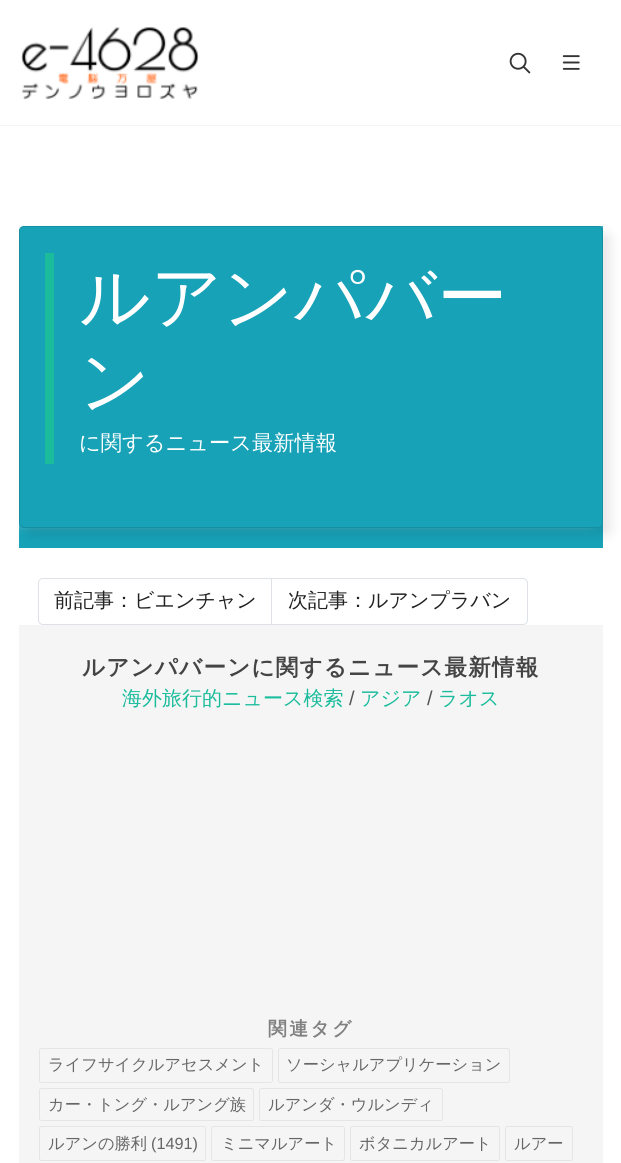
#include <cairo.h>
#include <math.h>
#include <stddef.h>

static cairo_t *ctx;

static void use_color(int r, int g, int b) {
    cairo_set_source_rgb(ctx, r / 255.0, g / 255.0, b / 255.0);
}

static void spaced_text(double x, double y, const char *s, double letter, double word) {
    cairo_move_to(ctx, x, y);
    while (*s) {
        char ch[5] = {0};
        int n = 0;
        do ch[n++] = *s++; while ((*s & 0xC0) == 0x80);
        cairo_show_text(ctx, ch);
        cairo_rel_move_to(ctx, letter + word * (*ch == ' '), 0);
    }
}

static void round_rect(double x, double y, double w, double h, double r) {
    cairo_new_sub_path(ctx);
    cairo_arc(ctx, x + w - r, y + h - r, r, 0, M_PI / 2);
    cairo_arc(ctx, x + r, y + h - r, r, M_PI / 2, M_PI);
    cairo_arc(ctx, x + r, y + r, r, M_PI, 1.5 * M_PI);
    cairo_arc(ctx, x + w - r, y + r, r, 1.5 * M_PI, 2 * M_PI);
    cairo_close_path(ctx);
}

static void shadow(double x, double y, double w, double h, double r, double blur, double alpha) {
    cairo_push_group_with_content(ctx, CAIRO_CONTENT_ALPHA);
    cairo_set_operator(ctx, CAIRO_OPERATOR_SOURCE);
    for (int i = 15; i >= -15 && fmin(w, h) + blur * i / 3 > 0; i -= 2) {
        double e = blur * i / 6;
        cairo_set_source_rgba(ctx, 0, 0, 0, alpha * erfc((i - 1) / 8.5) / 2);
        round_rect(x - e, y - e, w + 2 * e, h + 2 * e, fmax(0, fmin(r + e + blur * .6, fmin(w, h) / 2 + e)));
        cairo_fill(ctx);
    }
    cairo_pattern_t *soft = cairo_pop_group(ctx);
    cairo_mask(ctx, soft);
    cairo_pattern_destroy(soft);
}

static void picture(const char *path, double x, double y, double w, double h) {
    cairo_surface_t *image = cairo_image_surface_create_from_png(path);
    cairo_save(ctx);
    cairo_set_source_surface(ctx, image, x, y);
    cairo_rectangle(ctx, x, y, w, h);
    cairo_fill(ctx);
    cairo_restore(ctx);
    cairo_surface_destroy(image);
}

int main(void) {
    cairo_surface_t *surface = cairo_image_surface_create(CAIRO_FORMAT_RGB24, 621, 1163);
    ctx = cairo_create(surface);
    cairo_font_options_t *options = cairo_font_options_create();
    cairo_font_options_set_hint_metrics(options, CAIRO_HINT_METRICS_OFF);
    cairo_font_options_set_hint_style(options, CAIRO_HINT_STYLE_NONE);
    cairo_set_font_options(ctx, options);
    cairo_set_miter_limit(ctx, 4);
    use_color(255, 255, 255);
    cairo_paint(ctx);
    use_color(245, 245, 245);
    cairo_rectangle(ctx, 0, 125, 621, 1);
    cairo_fill(ctx);
    picture("img1.png", 21, 27, 178, 72);
    picture("img2.png", 509, 52, 22, 22);
    picture("img3.png", 562, 55, 18, 15);
    use_color(23, 162, 184);
    cairo_rectangle(ctx, 19, 226, 584, 322);
    cairo_fill(ctx);
    use_color(255, 255, 255);
    shadow(11, 219, 584, 301, 5, 6, 1);
    use_color(0, 0, 0);
    shadow(26, 234, 584, 301, 5, 6, 0.1);
    use_color(23, 162, 184);
    round_rect(19, 226, 584, 302, 5);
    cairo_fill(ctx);
    round_rect(19.5, 226.5, 583, 301, 4.5);
    cairo_set_source_rgba(ctx, 0, 0, 0, 0.12);
    cairo_set_line_width(ctx, 1);
    cairo_stroke(ctx);
    use_color(26, 188, 156);
    cairo_rectangle(ctx, 45, 253, 9, 211);
    cairo_fill(ctx);
    cairo_select_font_face(ctx, "WenQuanYi Zen Hei Medium", CAIRO_FONT_SLANT_NORMAL, CAIRO_FONT_WEIGHT_NORMAL);
    cairo_set_font_size(ctx, 70);
    use_color(255, 255, 255);
    cairo_move_to(ctx, 79, 321);
    cairo_show_text(ctx, "ルアンパバー");
    cairo_move_to(ctx, 79, 405);
    cairo_show_text(ctx, "ン");
    cairo_set_font_size(ctx, 21.25);
    cairo_move_to(ctx, 79, 450);
    cairo_show_text(ctx, "に関するニュース最新情報");
    cairo_new_path(ctx);
    cairo_move_to(ctx, 43, 578.5);
    cairo_line_to(ctx, 272.5, 578.5);
    cairo_line_to(ctx, 272.5, 624.5);
    cairo_line_to(ctx, 43, 624.5);
    cairo_curve_to(ctx, 40.5, 624.5, 38.5, 622.5, 38.5, 620);
    cairo_line_to(ctx, 38.5, 583);
    cairo_curve_to(ctx, 38.5, 580.5, 40.5, 578.5, 43, 578.5);
    cairo_close_path(ctx);
    use_color(222, 226, 230);
    cairo_stroke(ctx);
    cairo_set_font_size(ctx, 20);
    use_color(34, 34, 34);
    cairo_move_to(ctx, 54, 607);
    cairo_show_text(ctx, "前記事：ビエンチャン");
    use_color(255, 255, 255);
    cairo_new_path(ctx);
    cairo_move_to(ctx, 271.5, 578.5);
    cairo_line_to(ctx, 523, 578.5);
    cairo_curve_to(ctx, 525.5, 578.5, 527.5, 580.5, 527.5, 583);
    cairo_line_to(ctx, 527.5, 620);
    cairo_curve_to(ctx, 527.5, 622.5, 525.5, 624.5, 523, 624.5);
    cairo_line_to(ctx, 271.5, 624.5);
    cairo_close_path(ctx);
    cairo_fill_preserve(ctx);
    use_color(222, 226, 230);
    cairo_stroke(ctx);
    use_color(34, 34, 34);
    cairo_move_to(ctx, 288, 607);
    cairo_show_text(ctx, "次記事：ルアンプラバン");
    use_color(245, 245, 245);
    cairo_rectangle(ctx, 19, 625, 584, 538);
    cairo_fill(ctx);
    cairo_select_font_face(ctx, "WenQuanYi Zen Hei", CAIRO_FONT_SLANT_NORMAL, CAIRO_FONT_WEIGHT_BOLD);
    cairo_set_font_size(ctx, 22.5);
    use_color(68, 68, 68);
    spaced_text(82, 675, "ルアンパバーンに関するニュース最新情報", 1.25, 0);
    cairo_select_font_face(ctx, "WenQuanYi Zen Hei Medium", CAIRO_FONT_SLANT_NORMAL, CAIRO_FONT_WEIGHT_NORMAL);
    cairo_set_font_size(ctx, 20);
    use_color(26, 188, 156);
    cairo_move_to(ctx, 122, 705);
    cairo_show_text(ctx, "海外旅行的ニュース検索");
    cairo_select_font_face(ctx, "Liberation Sans", CAIRO_FONT_SLANT_NORMAL, CAIRO_FONT_WEIGHT_NORMAL);
    use_color(85, 85, 85);
    cairo_move_to(ctx, 349, 705);
    cairo_show_text(ctx, "/");
    cairo_select_font_face(ctx, "WenQuanYi Zen Hei Medium", CAIRO_FONT_SLANT_NORMAL, CAIRO_FONT_WEIGHT_NORMAL);
    use_color(26, 188, 156);
    cairo_move_to(ctx, 360, 705);
    cairo_show_text(ctx, "アジア");
    cairo_select_font_face(ctx, "Liberation Sans", CAIRO_FONT_SLANT_NORMAL, CAIRO_FONT_WEIGHT_NORMAL);
    use_color(85, 85, 85);
    cairo_move_to(ctx, 427, 705);
    cairo_show_text(ctx, "/");
    cairo_select_font_face(ctx, "WenQuanYi Zen Hei Medium", CAIRO_FONT_SLANT_NORMAL, CAIRO_FONT_WEIGHT_NORMAL);
    use_color(26, 188, 156);
    cairo_move_to(ctx, 438, 705);
    cairo_show_text(ctx, "ラオス");
    cairo_select_font_face(ctx, "WenQuanYi Zen Hei", CAIRO_FONT_SLANT_NORMAL, CAIRO_FONT_WEIGHT_BOLD);
    cairo_set_font_size(ctx, 18.75);
    use_color(128, 128, 128);
    spaced_text(268, 1035, "関連タグ", 2.5, 0);
    round_rect(39.5, 1048.5, 233, 34, 2);
    use_color(229, 229, 229);
    cairo_stroke(ctx);
    cairo_select_font_face(ctx, "WenQuanYi Zen Hei Medium", CAIRO_FONT_SLANT_NORMAL, CAIRO_FONT_WEIGHT_NORMAL);
    cairo_set_font_size(ctx, 16.25);
    use_color(102, 102, 102);
    cairo_move_to(ctx, 48, 1070);
    cairo_show_text(ctx, "ライフサイクルアセスメント");
    round_rect(278.5, 1048.5, 231, 34, 2);
    use_color(229, 229, 229);
    cairo_stroke(ctx);
    use_color(102, 102, 102);
    cairo_move_to(ctx, 286, 1070);
    cairo_show_text(ctx, "ソーシャルアプリケーション");
    round_rect(39.5, 1088.5, 214, 32, 2);
    use_color(229, 229, 229);
    cairo_stroke(ctx);
    use_color(102, 102, 102);
    cairo_move_to(ctx, 48, 1110);
    cairo_show_text(ctx, "カー・トング・ルアング族");
    round_rect(259.5, 1088.5, 183, 32, 2);
    use_color(229, 229, 229);
    cairo_stroke(ctx);
    use_color(102, 102, 102);
    cairo_move_to(ctx, 268, 1110);
    cairo_show_text(ctx, "ルアンダ・ウルンディ");
    round_rect(39.5, 1126.5, 166, 34, 2);
    use_color(229, 229, 229);
    cairo_stroke(ctx);
    use_color(102, 102, 102);
    cairo_move_to(ctx, 48, 1149);
    cairo_show_text(ctx, "ルアンの勝利");
    cairo_select_font_face(ctx, "Liberation Sans", CAIRO_FONT_SLANT_NORMAL, CAIRO_FONT_WEIGHT_NORMAL);
    cairo_move_to(ctx, 151, 1149);
    cairo_show_text(ctx, "(1491)");
    round_rect(211.5, 1126.5, 133, 34, 2);
    use_color(229, 229, 229);
    cairo_stroke(ctx);
    cairo_select_font_face(ctx, "WenQuanYi Zen Hei Medium", CAIRO_FONT_SLANT_NORMAL, CAIRO_FONT_WEIGHT_NORMAL);
    use_color(102, 102, 102);
    cairo_move_to(ctx, 221, 1149);
    cairo_show_text(ctx, "ミニマルアート");
    round_rect(350.5, 1126.5, 149, 34, 2);
    use_color(229, 229, 229);
    cairo_stroke(ctx);
    use_color(102, 102, 102);
    cairo_move_to(ctx, 359, 1149);
    cairo_show_text(ctx, "ボタニカルアート");
    round_rect(505.5, 1126.5, 67, 34, 2);
    use_color(229, 229, 229);
    cairo_stroke(ctx);
    use_color(102, 102, 102);
    cairo_move_to(ctx, 514, 1149);
    cairo_show_text(ctx, "ルアー");
    cairo_surface_write_to_png(surface, "result.png");
    cairo_font_options_destroy(options);
    cairo_destroy(ctx);
    cairo_surface_destroy(surface);
    return 0;
}
